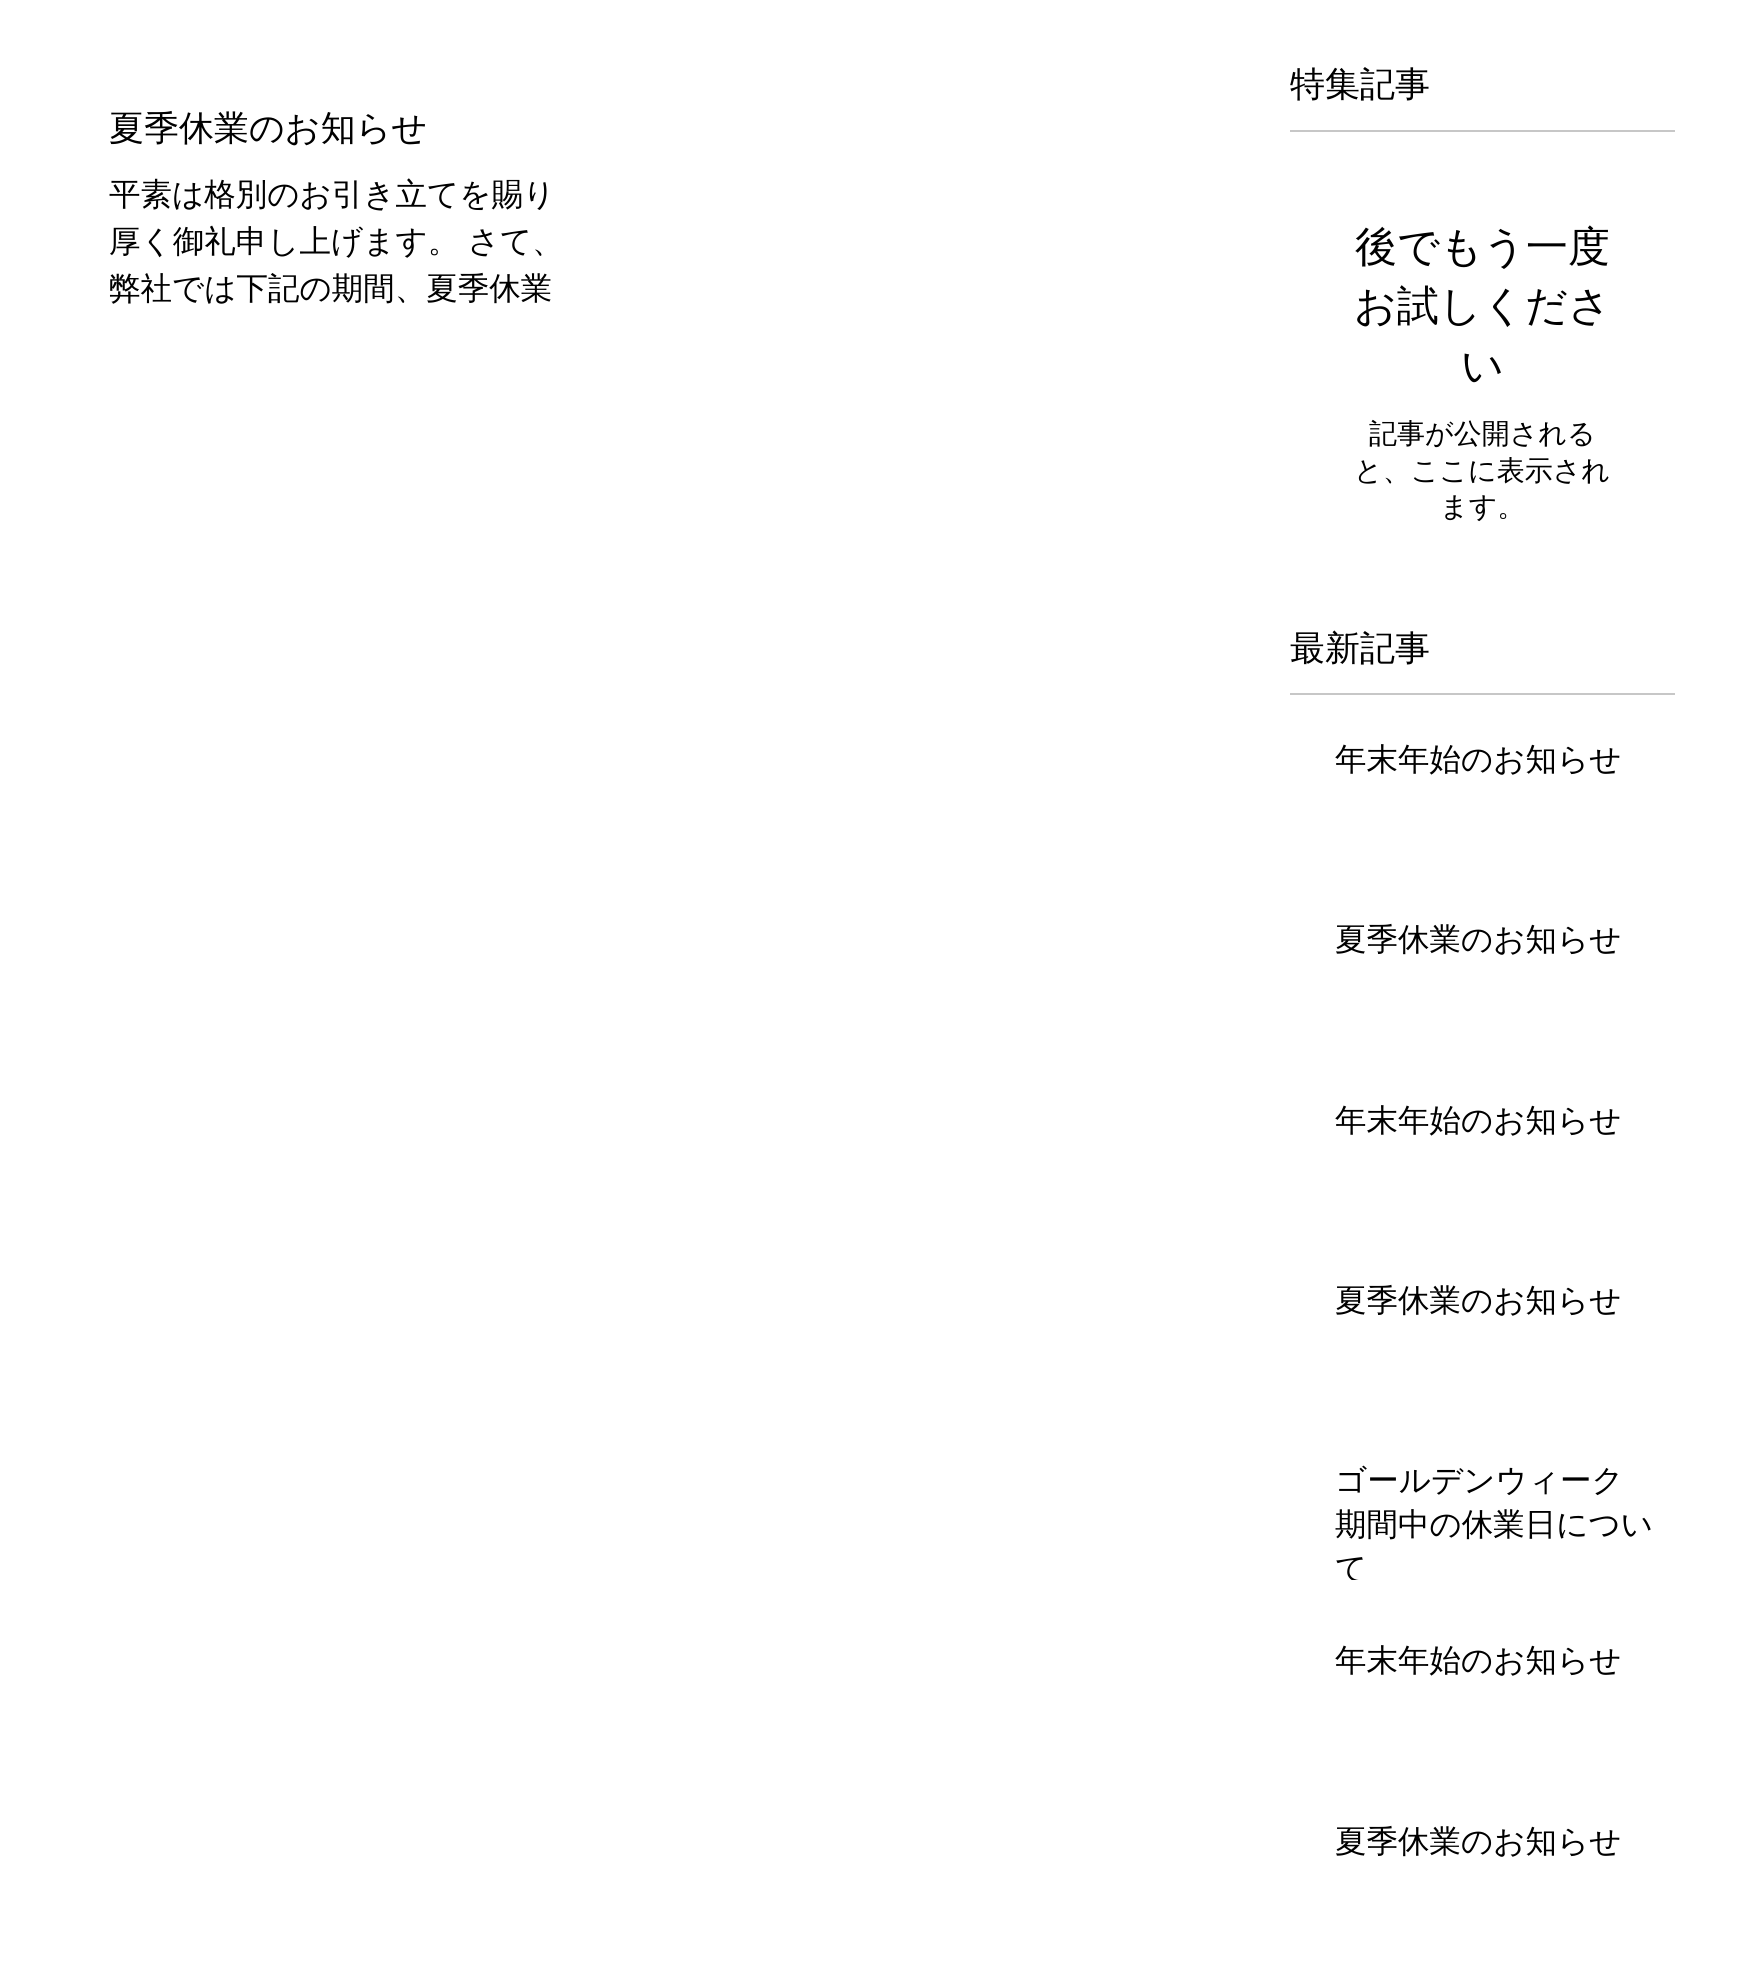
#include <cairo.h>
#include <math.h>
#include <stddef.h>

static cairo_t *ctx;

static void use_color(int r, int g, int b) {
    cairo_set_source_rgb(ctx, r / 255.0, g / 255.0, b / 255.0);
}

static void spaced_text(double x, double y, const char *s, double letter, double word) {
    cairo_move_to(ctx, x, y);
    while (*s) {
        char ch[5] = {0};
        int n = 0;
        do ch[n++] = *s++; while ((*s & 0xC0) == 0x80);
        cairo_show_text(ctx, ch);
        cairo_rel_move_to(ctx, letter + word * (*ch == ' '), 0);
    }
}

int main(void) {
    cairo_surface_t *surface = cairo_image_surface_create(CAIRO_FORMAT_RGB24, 1742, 1967);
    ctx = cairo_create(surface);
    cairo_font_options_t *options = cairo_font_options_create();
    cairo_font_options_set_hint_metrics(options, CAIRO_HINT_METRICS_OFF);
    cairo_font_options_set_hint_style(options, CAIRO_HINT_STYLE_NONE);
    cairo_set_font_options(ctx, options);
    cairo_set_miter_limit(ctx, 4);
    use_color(255, 255, 255);
    cairo_paint(ctx);
    cairo_select_font_face(ctx, "WenQuanYi Zen Hei Medium", CAIRO_FONT_SLANT_NORMAL, CAIRO_FONT_WEIGHT_NORMAL);
    cairo_set_font_size(ctx, 35);
    use_color(0, 0, 0);
    cairo_move_to(ctx, 1290, 96);
    cairo_show_text(ctx, "特集記事");
    cairo_move_to(ctx, 109, 140);
    cairo_show_text(ctx, "夏季休業のお知らせ");
    cairo_set_font_size(ctx, 31.5);
    cairo_move_to(ctx, 109, 205);
    cairo_show_text(ctx, "平素は格別のお引き立てを賜り");
    spaced_text(109, 252, "厚く御礼申し上げます。 さて、", 0, -1);
    cairo_move_to(ctx, 109, 299);
    cairo_show_text(ctx, "弊社では下記の期間、夏季休業");
    use_color(199, 199, 199);
    cairo_rectangle(ctx, 1290, 130, 385, 2);
    cairo_fill(ctx);
    cairo_set_font_size(ctx, 42);
    use_color(0, 0, 0);
    cairo_move_to(ctx, 1355, 261);
    cairo_show_text(ctx, "後でもう一度");
    cairo_move_to(ctx, 1354, 320);
    cairo_show_text(ctx, "お試しくださ");
    cairo_move_to(ctx, 1461, 380);
    cairo_show_text(ctx, "い");
    cairo_set_font_size(ctx, 28);
    cairo_move_to(ctx, 1369, 443);
    cairo_show_text(ctx, "記事が公開される");
    cairo_move_to(ctx, 1354, 480);
    cairo_show_text(ctx, "と、ここに表示され");
    cairo_move_to(ctx, 1440, 516);
    cairo_show_text(ctx, "ます。");
    cairo_set_font_size(ctx, 35);
    cairo_move_to(ctx, 1290, 660);
    cairo_show_text(ctx, "最新記事");
    use_color(199, 199, 199);
    cairo_rectangle(ctx, 1290, 693, 385, 2);
    cairo_fill(ctx);
    cairo_set_font_size(ctx, 31.5);
    use_color(0, 0, 0);
    cairo_move_to(ctx, 1335, 770);
    cairo_show_text(ctx, "年末年始のお知らせ");
    cairo_move_to(ctx, 1335, 950);
    cairo_show_text(ctx, "夏季休業のお知らせ");
    cairo_move_to(ctx, 1335, 1131);
    cairo_show_text(ctx, "年末年始のお知らせ");
    cairo_move_to(ctx, 1335, 1311);
    cairo_show_text(ctx, "夏季休業のお知らせ");
    cairo_move_to(ctx, 1335, 1491);
    cairo_show_text(ctx, "ゴールデンウィーク");
    cairo_move_to(ctx, 1335, 1535);
    cairo_show_text(ctx, "期間中の休業日につい");
    cairo_save(ctx);
    cairo_rectangle(ctx, 1335, 1460, 319, 120);
    cairo_clip(ctx);
    cairo_move_to(ctx, 1335, 1579);
    cairo_show_text(ctx, "て");
    cairo_restore(ctx);
    cairo_move_to(ctx, 1335, 1671);
    cairo_show_text(ctx, "年末年始のお知らせ");
    cairo_move_to(ctx, 1335, 1852);
    cairo_show_text(ctx, "夏季休業のお知らせ");
    cairo_surface_write_to_png(surface, "result.png");
    cairo_font_options_destroy(options);
    cairo_destroy(ctx);
    cairo_surface_destroy(surface);
    return 0;
}
